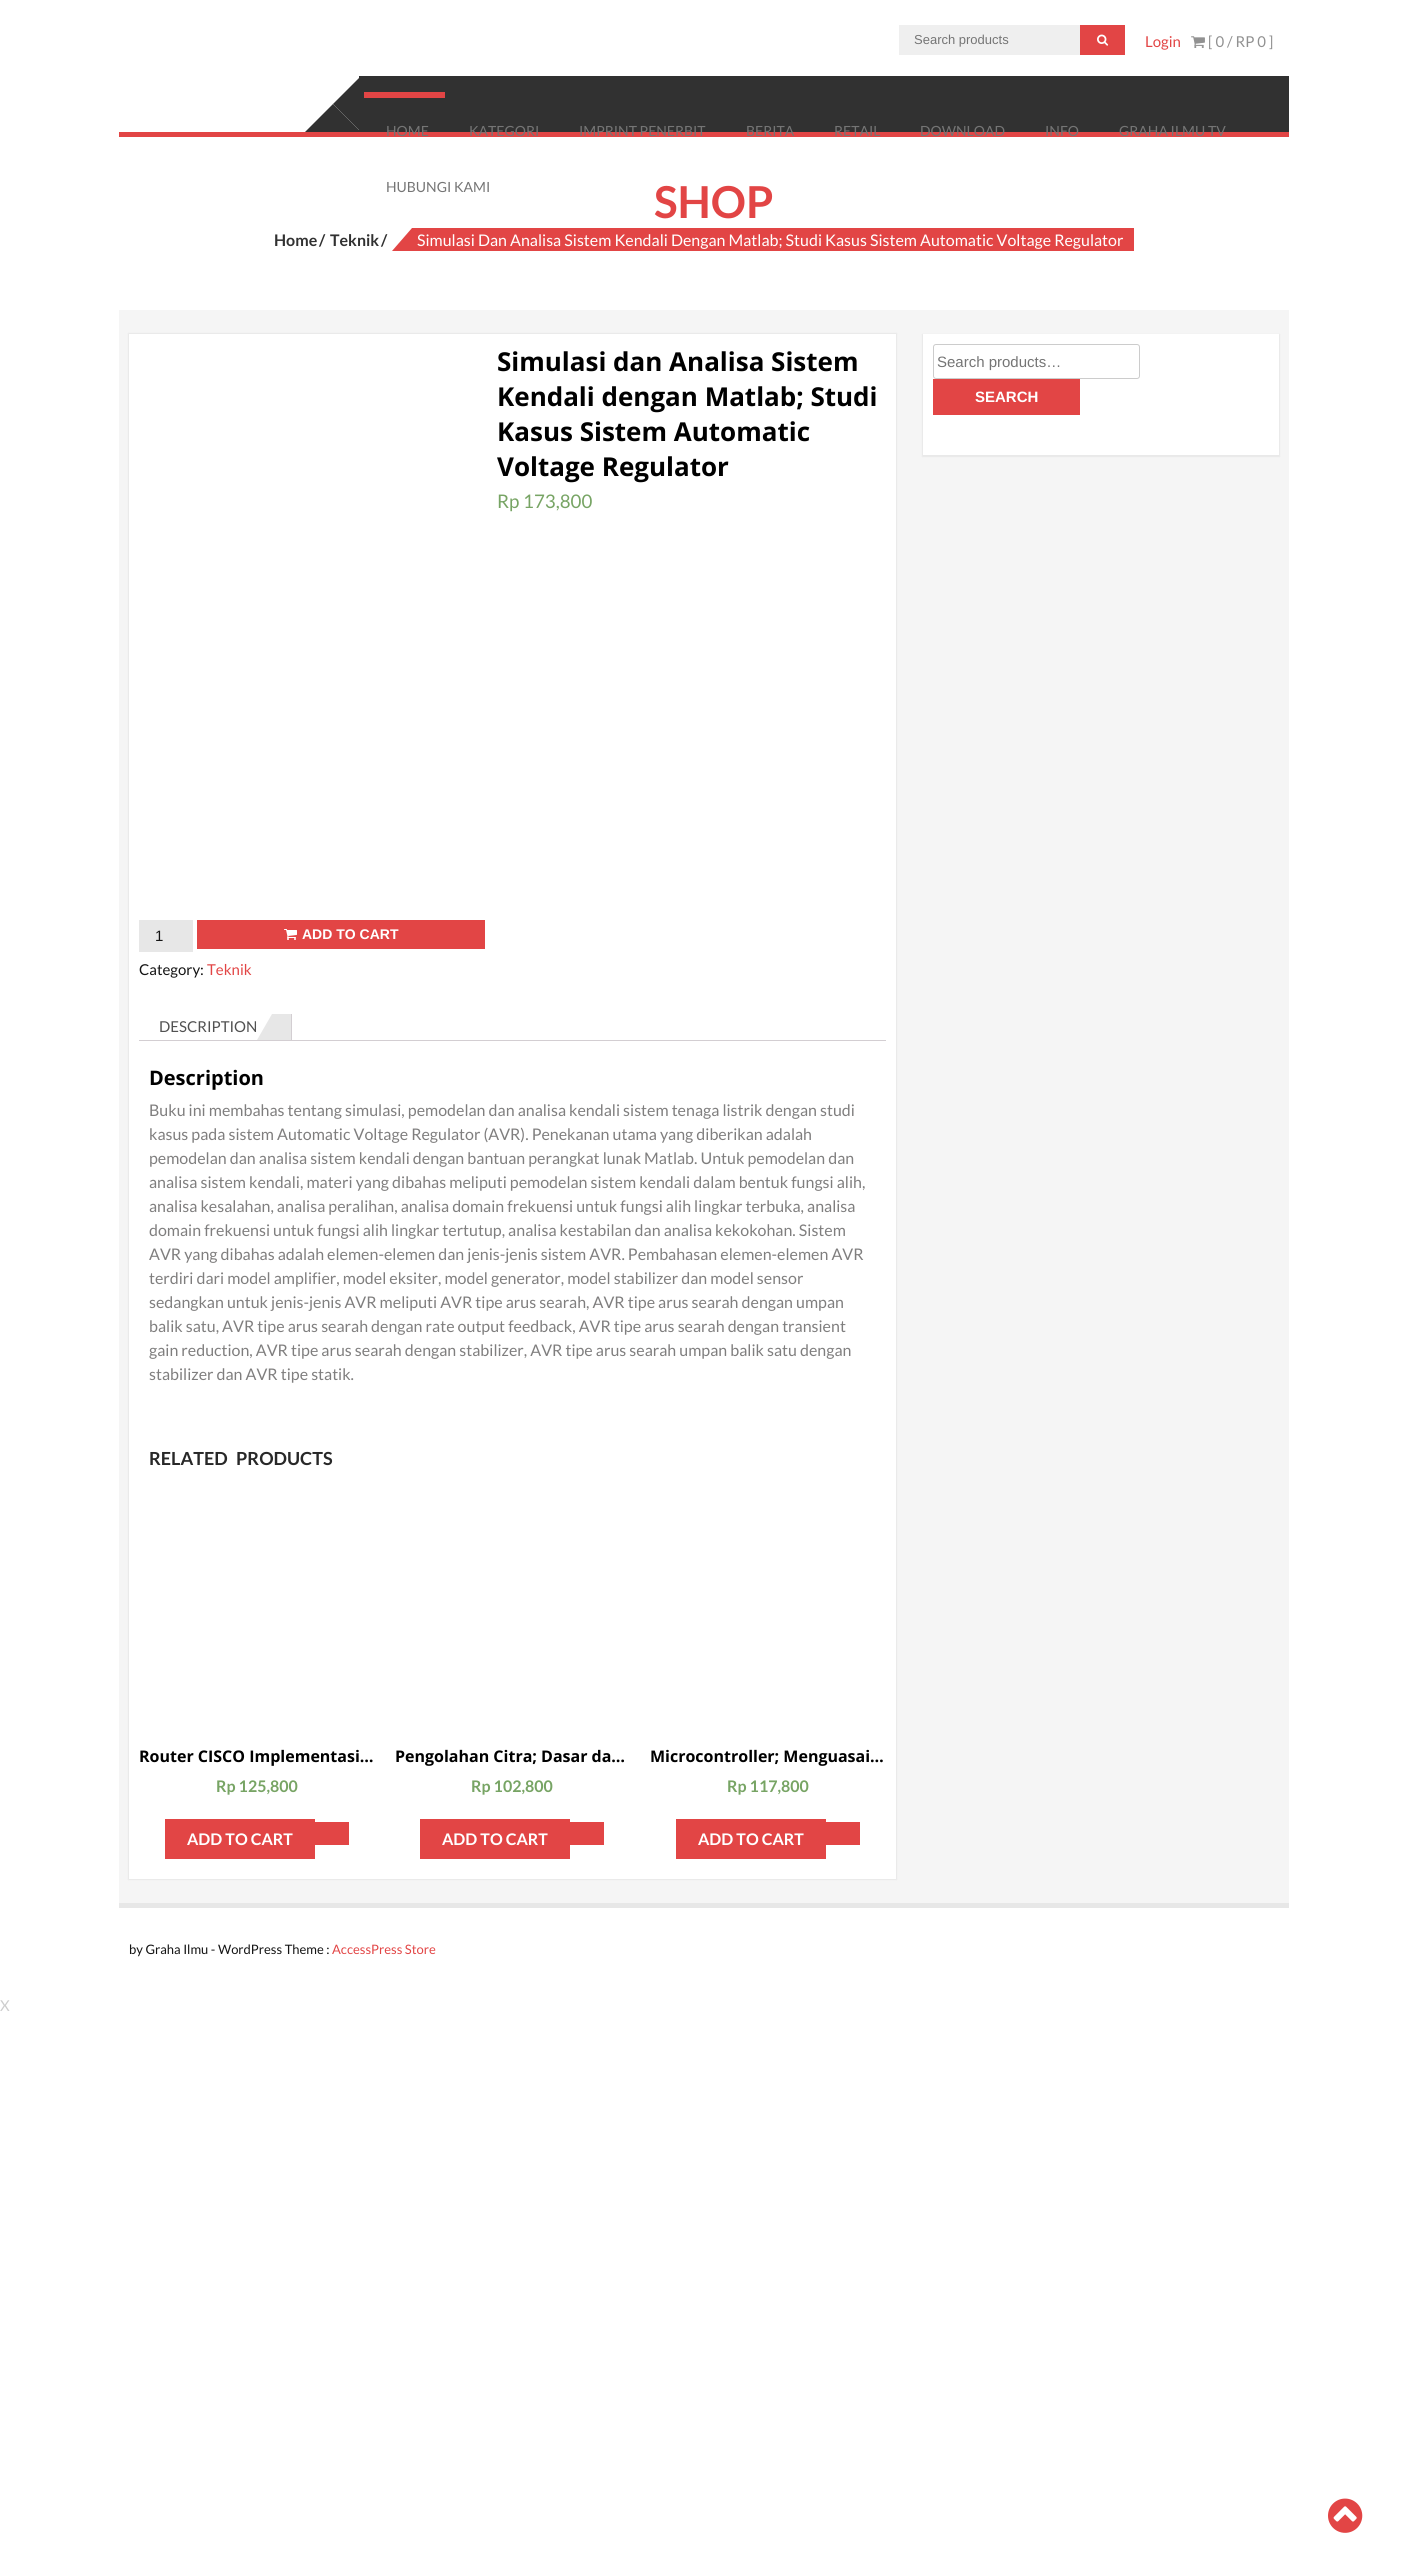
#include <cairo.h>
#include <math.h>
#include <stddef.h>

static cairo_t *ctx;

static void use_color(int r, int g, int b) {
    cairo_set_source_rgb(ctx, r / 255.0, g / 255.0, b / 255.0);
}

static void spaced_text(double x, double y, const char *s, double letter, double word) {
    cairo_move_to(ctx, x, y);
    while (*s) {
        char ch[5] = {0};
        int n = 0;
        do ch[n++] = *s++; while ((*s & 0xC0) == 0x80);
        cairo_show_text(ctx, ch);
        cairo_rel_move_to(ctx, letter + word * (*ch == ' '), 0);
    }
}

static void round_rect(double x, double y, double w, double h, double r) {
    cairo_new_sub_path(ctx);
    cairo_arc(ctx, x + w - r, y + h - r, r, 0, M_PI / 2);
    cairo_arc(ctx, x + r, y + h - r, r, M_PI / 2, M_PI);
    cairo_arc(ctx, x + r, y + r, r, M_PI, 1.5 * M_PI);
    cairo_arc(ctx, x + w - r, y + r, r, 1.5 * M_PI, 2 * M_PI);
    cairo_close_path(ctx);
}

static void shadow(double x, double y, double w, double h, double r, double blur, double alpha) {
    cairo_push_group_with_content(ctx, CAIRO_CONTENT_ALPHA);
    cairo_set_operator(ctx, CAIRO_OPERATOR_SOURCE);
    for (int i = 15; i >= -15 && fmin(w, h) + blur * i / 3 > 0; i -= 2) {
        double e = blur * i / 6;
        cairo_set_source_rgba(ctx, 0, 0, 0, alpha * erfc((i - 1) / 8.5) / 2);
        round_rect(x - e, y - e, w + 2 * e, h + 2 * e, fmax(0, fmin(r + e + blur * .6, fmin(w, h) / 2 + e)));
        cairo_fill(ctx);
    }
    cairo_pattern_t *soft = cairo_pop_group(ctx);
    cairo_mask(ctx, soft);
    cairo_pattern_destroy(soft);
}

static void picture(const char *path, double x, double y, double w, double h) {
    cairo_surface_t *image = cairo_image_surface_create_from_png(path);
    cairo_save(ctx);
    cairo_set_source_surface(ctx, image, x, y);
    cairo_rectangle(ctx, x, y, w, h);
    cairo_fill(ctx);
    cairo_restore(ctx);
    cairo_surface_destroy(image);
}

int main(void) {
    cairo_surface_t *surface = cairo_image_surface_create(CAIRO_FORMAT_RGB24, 1408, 2560);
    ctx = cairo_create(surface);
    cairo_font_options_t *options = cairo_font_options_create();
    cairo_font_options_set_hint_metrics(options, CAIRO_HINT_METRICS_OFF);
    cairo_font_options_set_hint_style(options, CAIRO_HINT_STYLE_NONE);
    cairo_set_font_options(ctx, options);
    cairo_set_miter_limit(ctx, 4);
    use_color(255, 255, 255);
    cairo_paint(ctx);
    use_color(239, 239, 239);
    cairo_rectangle(ctx, 899, 25, 181, 30);
    cairo_fill(ctx);
    cairo_select_font_face(ctx, "Liberation Sans", CAIRO_FONT_SLANT_NORMAL, CAIRO_FONT_WEIGHT_NORMAL);
    cairo_set_font_size(ctx, 13);
    use_color(117, 117, 117);
    cairo_move_to(ctx, 914, 44);
    cairo_show_text(ctx, "Search products");
    use_color(226, 69, 69);
    cairo_rectangle(ctx, 1080, 25, 45, 30);
    cairo_fill(ctx);
    picture("img1.png", 1097, 34, 12, 12);
    cairo_select_font_face(ctx, "Lato", CAIRO_FONT_SLANT_NORMAL, CAIRO_FONT_WEIGHT_NORMAL);
    cairo_set_font_size(ctx, 15);
    cairo_move_to(ctx, 1145, 47);
    cairo_show_text(ctx, "Login");
    picture("img2.png", 1191, 36, 14, 12);
    use_color(145, 145, 145);
    cairo_move_to(ctx, 1208, 47);
    cairo_show_text(ctx, "[ 0 / RP 0 ]");
    use_color(226, 69, 69);
    cairo_rectangle(ctx, 119, 132, 1170, 5);
    cairo_fill(ctx);
    use_color(49, 49, 49);
    cairo_rectangle(ctx, 364, 76, 925, 56);
    cairo_fill(ctx);
    use_color(226, 69, 69);
    cairo_rectangle(ctx, 361, 92, 84, 6);
    cairo_fill(ctx);
    use_color(49, 49, 49);
    cairo_rectangle(ctx, 359, 76, 5, 56);
    cairo_fill(ctx);
    cairo_new_path(ctx);
    cairo_move_to(ctx, 361, 76);
    cairo_line_to(ctx, 361, 132);
    cairo_line_to(ctx, 333, 104);
    cairo_close_path(ctx);
    cairo_fill(ctx);
    cairo_new_path(ctx);
    cairo_move_to(ctx, 361, 132);
    cairo_line_to(ctx, 305, 132);
    cairo_line_to(ctx, 333, 104);
    cairo_close_path(ctx);
    cairo_fill(ctx);
    cairo_set_font_size(ctx, 14);
    use_color(117, 117, 117);
    cairo_move_to(ctx, 386, 136);
    cairo_show_text(ctx, "HOME");
    cairo_move_to(ctx, 469, 136);
    cairo_show_text(ctx, "KATEGORI");
    cairo_move_to(ctx, 579, 136);
    cairo_show_text(ctx, "IMPRINT PENERBIT");
    cairo_move_to(ctx, 746, 136);
    cairo_show_text(ctx, "BERITA");
    cairo_move_to(ctx, 834, 136);
    cairo_show_text(ctx, "RETAIL");
    cairo_move_to(ctx, 920, 136);
    cairo_show_text(ctx, "DOWNLOAD");
    cairo_move_to(ctx, 1045, 136);
    cairo_show_text(ctx, "INFO");
    cairo_move_to(ctx, 1119, 136);
    cairo_show_text(ctx, "GRAHA ILMU TV");
    cairo_move_to(ctx, 386, 192);
    cairo_show_text(ctx, "HUBUNGI KAMI");
    use_color(231, 231, 231);
    cairo_rectangle(ctx, 119, 1903, 1170, 5);
    cairo_fill(ctx);
    cairo_select_font_face(ctx, "Lato", CAIRO_FONT_SLANT_NORMAL, CAIRO_FONT_WEIGHT_BOLD);
    cairo_set_font_size(ctx, 44);
    use_color(226, 69, 69);
    cairo_move_to(ctx, 654, 218);
    cairo_show_text(ctx, "SHOP");
    cairo_set_font_size(ctx, 16);
    use_color(49, 49, 49);
    cairo_move_to(ctx, 274, 246);
    cairo_show_text(ctx, "Home");
    cairo_move_to(ctx, 319, 246);
    cairo_show_text(ctx, "/");
    cairo_move_to(ctx, 330, 246);
    cairo_show_text(ctx, "Teknik");
    cairo_move_to(ctx, 381, 246);
    cairo_show_text(ctx, "/");
    use_color(226, 69, 69);
    cairo_rectangle(ctx, 412, 228, 722, 23);
    cairo_fill(ctx);
    cairo_new_path(ctx);
    cairo_move_to(ctx, 412, 228);
    cairo_line_to(ctx, 412, 251);
    cairo_line_to(ctx, 392, 251);
    cairo_close_path(ctx);
    cairo_fill(ctx);
    cairo_select_font_face(ctx, "Lato", CAIRO_FONT_SLANT_NORMAL, CAIRO_FONT_WEIGHT_NORMAL);
    use_color(255, 255, 255);
    cairo_move_to(ctx, 417, 246);
    cairo_show_text(ctx, "Simulasi Dan Analisa Sistem Kendali Dengan Matlab; Studi Kasus Sistem Automatic Voltage Regulator");
    use_color(245, 245, 245);
    cairo_rectangle(ctx, 119, 310, 1170, 1593);
    cairo_fill(ctx);
    use_color(0, 0, 0);
    shadow(128, 333, 769, 1547, 0, 0.5, 0.05);
    use_color(255, 255, 255);
    cairo_rectangle(ctx, 129, 334, 767, 1545);
    cairo_fill(ctx);
    cairo_select_font_face(ctx, "Open Sans", CAIRO_FONT_SLANT_NORMAL, CAIRO_FONT_WEIGHT_BOLD);
    cairo_set_font_size(ctx, 26);
    use_color(0, 0, 0);
    cairo_move_to(ctx, 497, 371);
    cairo_show_text(ctx, "Simulasi dan Analisa Sistem");
    cairo_move_to(ctx, 497, 406);
    cairo_show_text(ctx, "Kendali dengan Matlab; Studi");
    cairo_move_to(ctx, 497, 441);
    cairo_show_text(ctx, "Kasus Sistem Automatic");
    cairo_move_to(ctx, 497, 476);
    cairo_show_text(ctx, "Voltage Regulator");
    cairo_select_font_face(ctx, "Lato", CAIRO_FONT_SLANT_NORMAL, CAIRO_FONT_WEIGHT_NORMAL);
    cairo_set_font_size(ctx, 18.75);
    use_color(119, 164, 100);
    cairo_move_to(ctx, 497, 508);
    cairo_show_text(ctx, "Rp 173,800");
    use_color(231, 231, 231);
    cairo_rectangle(ctx, 139, 920, 54, 32);
    cairo_fill(ctx);
    cairo_select_font_face(ctx, "Liberation Sans", CAIRO_FONT_SLANT_NORMAL, CAIRO_FONT_WEIGHT_NORMAL);
    cairo_set_font_size(ctx, 15);
    use_color(20, 20, 20);
    cairo_move_to(ctx, 155, 941);
    cairo_show_text(ctx, "1");
    use_color(226, 69, 69);
    cairo_rectangle(ctx, 197, 920, 288, 29);
    cairo_fill(ctx);
    picture("img3.png", 284, 929, 13, 11);
    cairo_select_font_face(ctx, "Liberation Sans", CAIRO_FONT_SLANT_NORMAL, CAIRO_FONT_WEIGHT_BOLD);
    cairo_set_font_size(ctx, 14);
    use_color(255, 255, 255);
    cairo_move_to(ctx, 302, 939);
    cairo_show_text(ctx, "ADD TO CART");
    cairo_select_font_face(ctx, "Lato", CAIRO_FONT_SLANT_NORMAL, CAIRO_FONT_WEIGHT_NORMAL);
    cairo_set_font_size(ctx, 15);
    use_color(20, 20, 20);
    cairo_move_to(ctx, 139, 975);
    cairo_show_text(ctx, "Category:");
    use_color(226, 69, 69);
    cairo_move_to(ctx, 207, 975);
    cairo_show_text(ctx, "Teknik");
    use_color(81, 81, 81);
    cairo_move_to(ctx, 159, 1032);
    cairo_show_text(ctx, "DESCRIPTION");
    use_color(231, 231, 231);
    cairo_new_path(ctx);
    cairo_move_to(ctx, 272, 1040);
    cairo_line_to(ctx, 257, 1040);
    cairo_line_to(ctx, 272, 1014);
    cairo_close_path(ctx);
    cairo_fill(ctx);
    cairo_rectangle(ctx, 272, 1014, 19, 26);
    cairo_fill(ctx);
    use_color(211, 206, 210);
    cairo_rectangle(ctx, 291, 1014, 1, 26);
    cairo_fill(ctx);
    cairo_rectangle(ctx, 139, 1040, 747, 1);
    cairo_fill(ctx);
    cairo_select_font_face(ctx, "Open Sans", CAIRO_FONT_SLANT_NORMAL, CAIRO_FONT_WEIGHT_BOLD);
    cairo_set_font_size(ctx, 20);
    use_color(0, 0, 0);
    cairo_move_to(ctx, 149, 1085);
    cairo_show_text(ctx, "Description");
    cairo_select_font_face(ctx, "Lato", CAIRO_FONT_SLANT_NORMAL, CAIRO_FONT_WEIGHT_NORMAL);
    cairo_set_font_size(ctx, 16);
    use_color(127, 126, 126);
    cairo_move_to(ctx, 149, 1116);
    cairo_show_text(ctx, "Buku ini membahas tentang simulasi, pemodelan dan analisa kendali sistem tenaga listrik dengan studi");
    cairo_move_to(ctx, 149, 1140);
    cairo_show_text(ctx, "kasus pada sistem Automatic Voltage Regulator (AVR). Penekanan utama yang diberikan adalah");
    cairo_move_to(ctx, 149, 1164);
    cairo_show_text(ctx, "pemodelan dan analisa sistem kendali dengan bantuan perangkat lunak Matlab. Untuk pemodelan dan");
    cairo_move_to(ctx, 149, 1188);
    cairo_show_text(ctx, "analisa sistem kendali, materi yang dibahas meliputi pemodelan sistem kendali dalam bentuk fungsi alih,");
    cairo_move_to(ctx, 149, 1212);
    cairo_show_text(ctx, "analisa kesalahan, analisa peralihan, analisa domain frekuensi untuk fungsi alih lingkar terbuka, analisa");
    cairo_move_to(ctx, 149, 1236);
    cairo_show_text(ctx, "domain frekuensi untuk fungsi alih lingkar tertutup, analisa kestabilan dan analisa kekokohan. Sistem");
    cairo_move_to(ctx, 149, 1260);
    cairo_show_text(ctx, "AVR yang dibahas adalah elemen-elemen dan jenis-jenis sistem AVR. Pembahasan elemen-elemen AVR");
    cairo_move_to(ctx, 149, 1284);
    cairo_show_text(ctx, "terdiri dari model amplifier, model eksiter, model generator, model stabilizer dan model sensor");
    cairo_move_to(ctx, 149, 1308);
    cairo_show_text(ctx, "sedangkan untuk jenis-jenis AVR meliputi AVR tipe arus searah, AVR tipe arus searah dengan umpan");
    cairo_move_to(ctx, 149, 1332);
    cairo_show_text(ctx, "balik satu, AVR tipe arus searah dengan rate output feedback, AVR tipe arus searah dengan transient");
    cairo_move_to(ctx, 149, 1356);
    cairo_show_text(ctx, "gain reduction, AVR tipe arus searah dengan stabilizer, AVR tipe arus searah umpan balik satu dengan");
    cairo_move_to(ctx, 149, 1380);
    cairo_show_text(ctx, "stabilizer dan AVR tipe statik.");
    cairo_select_font_face(ctx, "Lato", CAIRO_FONT_SLANT_NORMAL, CAIRO_FONT_WEIGHT_BOLD);
    cairo_set_font_size(ctx, 18);
    use_color(40, 40, 40);
    spaced_text(149, 1465, "RELATED PRODUCTS", 0, 5);
    cairo_select_font_face(ctx, "Open Sans", CAIRO_FONT_SLANT_NORMAL, CAIRO_FONT_WEIGHT_BOLD);
    cairo_set_font_size(ctx, 16);
    use_color(0, 0, 0);
    cairo_move_to(ctx, 139, 1762);
    cairo_show_text(ctx, "Router CISCO Implementasi…");
    cairo_select_font_face(ctx, "Lato", CAIRO_FONT_SLANT_NORMAL, CAIRO_FONT_WEIGHT_BOLD);
    use_color(119, 164, 100);
    cairo_move_to(ctx, 216, 1792);
    cairo_show_text(ctx, "Rp 125,800");
    use_color(226, 69, 69);
    cairo_rectangle(ctx, 165, 1819, 150, 40);
    cairo_fill(ctx);
    use_color(255, 255, 255);
    cairo_move_to(ctx, 187, 1845);
    cairo_show_text(ctx, "ADD TO CART");
    use_color(226, 69, 69);
    cairo_rectangle(ctx, 315, 1822, 34, 23);
    cairo_fill(ctx);
    cairo_select_font_face(ctx, "Open Sans", CAIRO_FONT_SLANT_NORMAL, CAIRO_FONT_WEIGHT_BOLD);
    use_color(0, 0, 0);
    cairo_move_to(ctx, 395, 1762);
    cairo_show_text(ctx, "Pengolahan Citra; Dasar da…");
    cairo_select_font_face(ctx, "Lato", CAIRO_FONT_SLANT_NORMAL, CAIRO_FONT_WEIGHT_BOLD);
    use_color(119, 164, 100);
    cairo_move_to(ctx, 471, 1792);
    cairo_show_text(ctx, "Rp 102,800");
    use_color(226, 69, 69);
    cairo_rectangle(ctx, 420, 1819, 150, 40);
    cairo_fill(ctx);
    use_color(255, 255, 255);
    cairo_move_to(ctx, 442, 1845);
    cairo_show_text(ctx, "ADD TO CART");
    use_color(226, 69, 69);
    cairo_rectangle(ctx, 570, 1822, 34, 23);
    cairo_fill(ctx);
    cairo_select_font_face(ctx, "Open Sans", CAIRO_FONT_SLANT_NORMAL, CAIRO_FONT_WEIGHT_BOLD);
    use_color(0, 0, 0);
    cairo_move_to(ctx, 650, 1762);
    cairo_show_text(ctx, "Microcontroller; Menguasai…");
    cairo_select_font_face(ctx, "Lato", CAIRO_FONT_SLANT_NORMAL, CAIRO_FONT_WEIGHT_BOLD);
    use_color(119, 164, 100);
    cairo_move_to(ctx, 727, 1792);
    cairo_show_text(ctx, "Rp 117,800");
    use_color(226, 69, 69);
    cairo_rectangle(ctx, 676, 1819, 150, 40);
    cairo_fill(ctx);
    use_color(255, 255, 255);
    cairo_move_to(ctx, 698, 1845);
    cairo_show_text(ctx, "ADD TO CART");
    use_color(226, 69, 69);
    cairo_rectangle(ctx, 826, 1822, 34, 23);
    cairo_fill(ctx);
    use_color(0, 0, 0);
    shadow(922, 334, 358, 123, 0, 0.5, 0.05);
    use_color(255, 255, 255);
    cairo_rectangle(ctx, 923, 334, 356, 121);
    cairo_fill(ctx);
    round_rect(933.5, 344.5, 206, 34, 2.5);
    use_color(204, 204, 204);
    cairo_set_line_width(ctx, 1);
    cairo_stroke(ctx);
    cairo_select_font_face(ctx, "Liberation Sans", CAIRO_FONT_SLANT_NORMAL, CAIRO_FONT_WEIGHT_NORMAL);
    cairo_set_font_size(ctx, 15);
    use_color(117, 117, 117);
    cairo_move_to(ctx, 937, 367);
    cairo_show_text(ctx, "Search products…");
    use_color(226, 69, 69);
    cairo_rectangle(ctx, 933, 379, 147, 36);
    cairo_fill(ctx);
    cairo_select_font_face(ctx, "Liberation Sans", CAIRO_FONT_SLANT_NORMAL, CAIRO_FONT_WEIGHT_BOLD);
    use_color(255, 255, 255);
    cairo_move_to(ctx, 975, 402);
    cairo_show_text(ctx, "SEARCH");
    cairo_select_font_face(ctx, "Lato", CAIRO_FONT_SLANT_NORMAL, CAIRO_FONT_WEIGHT_NORMAL);
    cairo_set_font_size(ctx, 13);
    use_color(20, 20, 20);
    cairo_move_to(ctx, 129, 1954);
    cairo_show_text(ctx, "by Graha Ilmu - WordPress Theme :");
    use_color(226, 69, 69);
    cairo_move_to(ctx, 332, 1954);
    cairo_show_text(ctx, "AccessPress Store");
    cairo_set_font_size(ctx, 15);
    use_color(205, 205, 205);
    cairo_move_to(ctx, 0, 2011);
    cairo_show_text(ctx, "X");
    picture("img4.png", 1328, 2498, 35, 35);
    cairo_surface_write_to_png(surface, "result.png");
    cairo_font_options_destroy(options);
    cairo_destroy(ctx);
    cairo_surface_destroy(surface);
    return 0;
}
